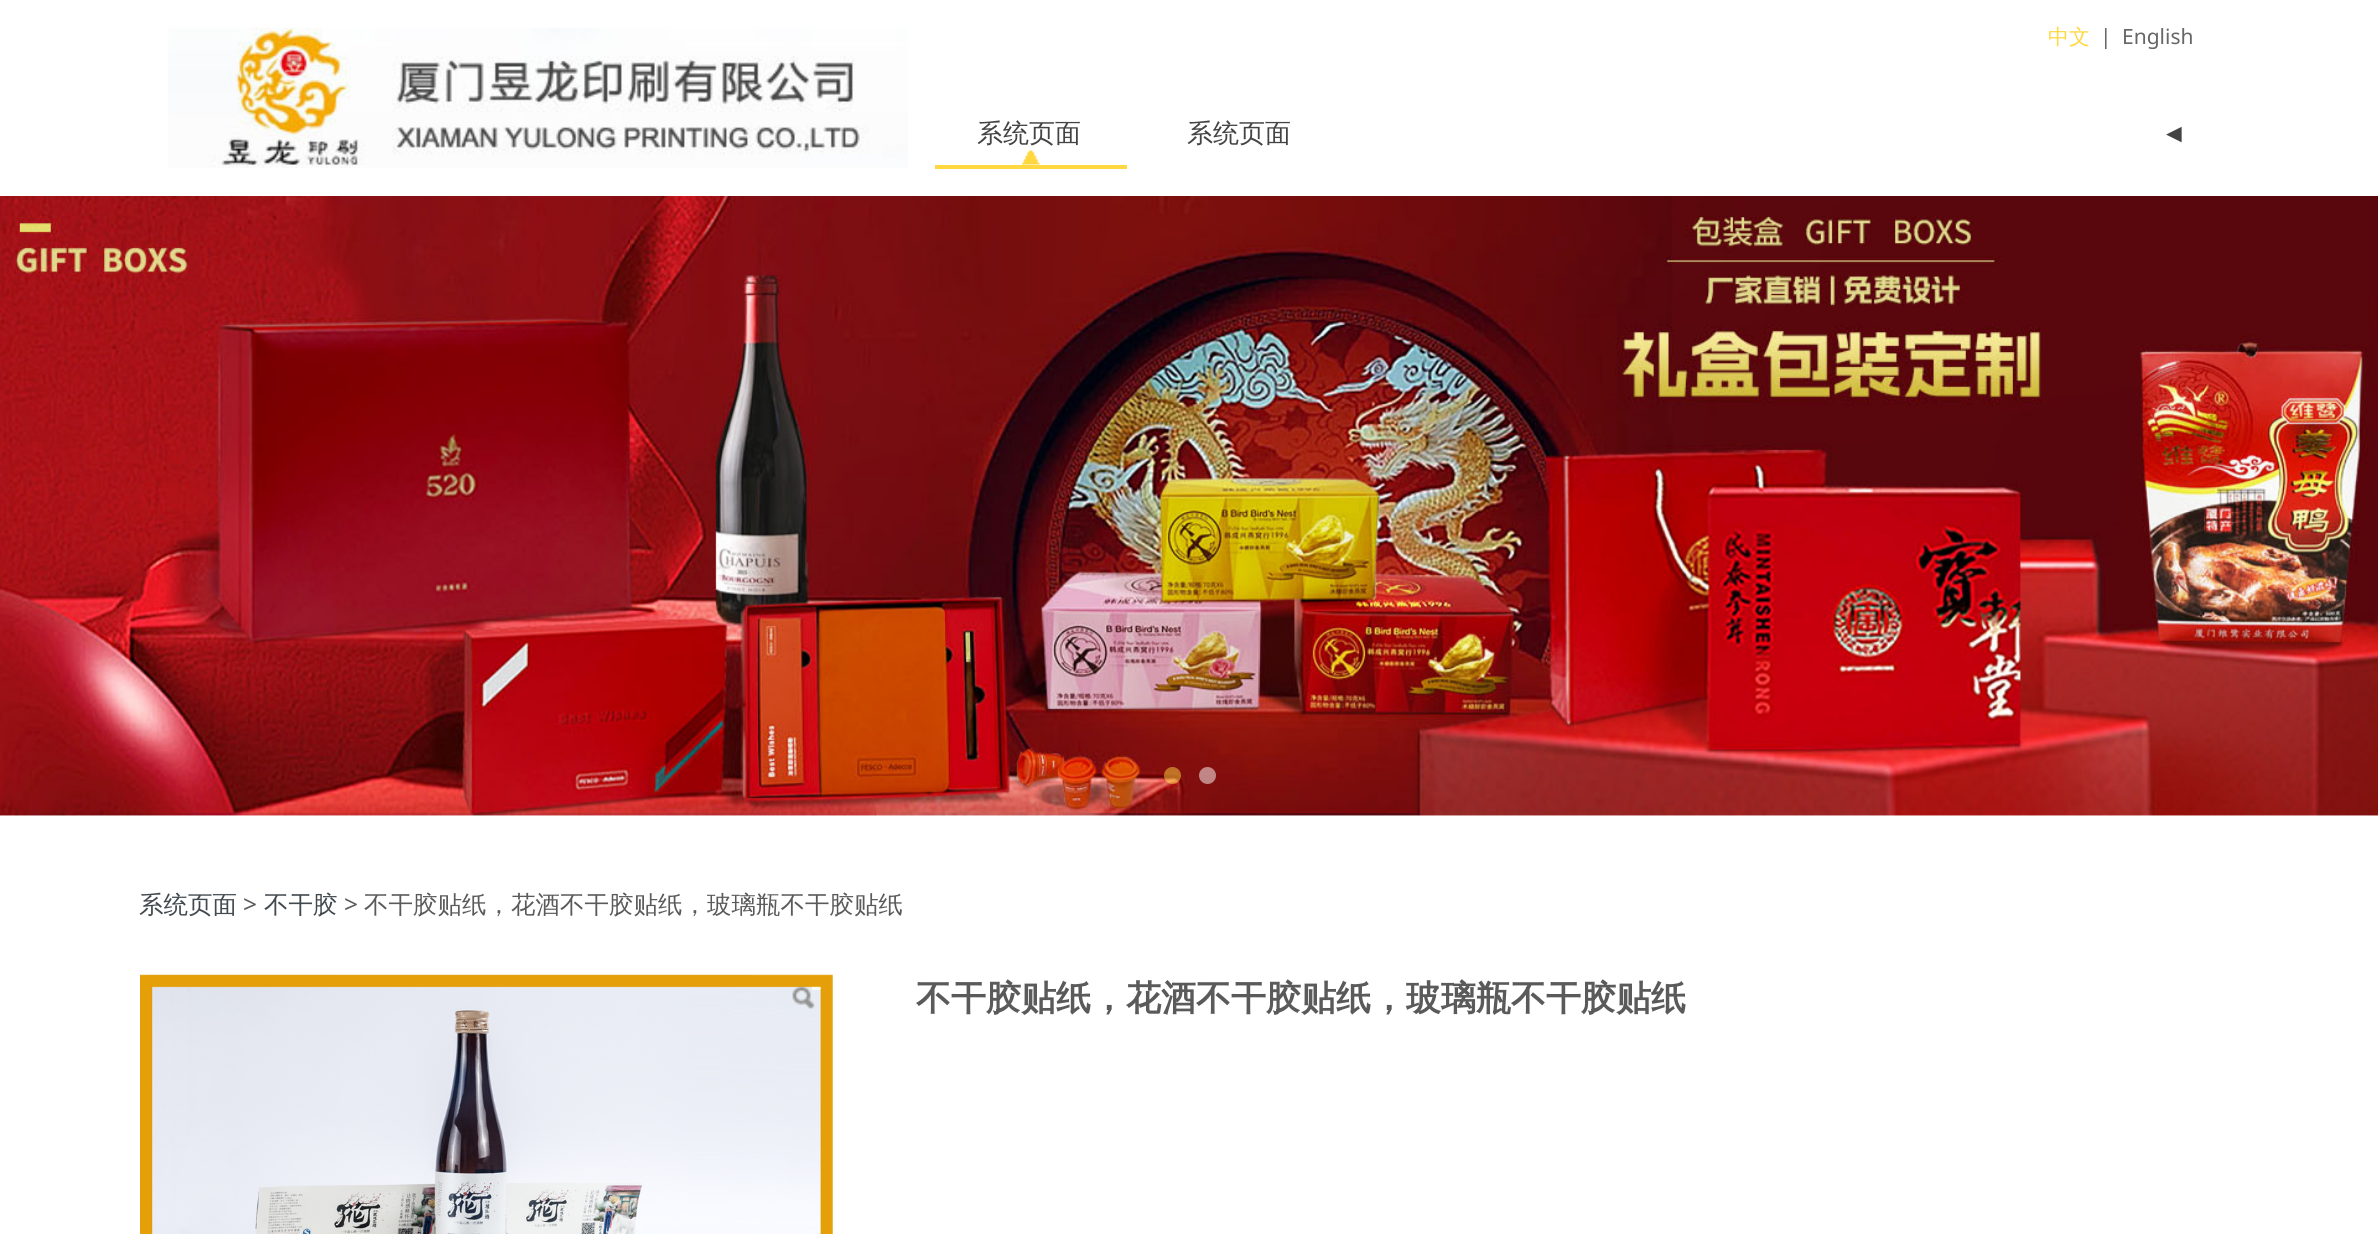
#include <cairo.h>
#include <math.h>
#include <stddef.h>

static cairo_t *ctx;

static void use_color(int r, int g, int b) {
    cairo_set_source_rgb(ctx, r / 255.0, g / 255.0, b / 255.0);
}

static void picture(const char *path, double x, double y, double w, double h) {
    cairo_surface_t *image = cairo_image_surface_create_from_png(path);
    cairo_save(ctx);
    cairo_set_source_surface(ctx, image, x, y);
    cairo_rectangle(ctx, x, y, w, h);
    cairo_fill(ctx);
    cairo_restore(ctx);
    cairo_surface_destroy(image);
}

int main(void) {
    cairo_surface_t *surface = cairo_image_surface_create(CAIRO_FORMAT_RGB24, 2378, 1234);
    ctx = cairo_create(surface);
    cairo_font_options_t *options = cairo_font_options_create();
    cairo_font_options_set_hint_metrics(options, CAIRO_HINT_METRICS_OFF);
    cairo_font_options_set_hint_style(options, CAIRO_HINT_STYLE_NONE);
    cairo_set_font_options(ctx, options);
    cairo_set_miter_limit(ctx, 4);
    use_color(255, 255, 255);
    cairo_paint(ctx);
    picture("img1.png", 168, 27, 740, 141);
    cairo_select_font_face(ctx, "WenQuanYi Zen Hei Medium", CAIRO_FONT_SLANT_NORMAL, CAIRO_FONT_WEIGHT_NORMAL);
    cairo_set_font_size(ctx, 21);
    use_color(255, 215, 64);
    cairo_move_to(ctx, 2048, 44);
    cairo_show_text(ctx, "中文");
    cairo_select_font_face(ctx, "Noto Sans", CAIRO_FONT_SLANT_NORMAL, CAIRO_FONT_WEIGHT_NORMAL);
    use_color(102, 102, 102);
    cairo_move_to(ctx, 2100, 44);
    cairo_show_text(ctx, "|");
    cairo_move_to(ctx, 2122, 44);
    cairo_show_text(ctx, "English");
    cairo_select_font_face(ctx, "WenQuanYi Zen Hei Medium", CAIRO_FONT_SLANT_NORMAL, CAIRO_FONT_WEIGHT_NORMAL);
    cairo_set_font_size(ctx, 26);
    use_color(67, 67, 67);
    cairo_move_to(ctx, 977, 142);
    cairo_show_text(ctx, "系统页面");
    picture("img2.png", 1022, 150, 18, 15);
    use_color(255, 215, 64);
    cairo_rectangle(ctx, 935, 165, 192, 4);
    cairo_fill(ctx);
    use_color(67, 67, 67);
    cairo_move_to(ctx, 1187, 142);
    cairo_show_text(ctx, "系统页面");
    cairo_select_font_face(ctx, "Liberation Sans", CAIRO_FONT_SLANT_NORMAL, CAIRO_FONT_WEIGHT_NORMAL);
    cairo_move_to(ctx, 2161, 142);
    cairo_show_text(ctx, "◄");
    picture("img3.png", 0, 196, 2378, 620);
    cairo_set_source_rgba(ctx, 1, 0.843, 0.251, 0.5);
    cairo_arc(ctx, 1172.5, 775.5, 8.5, 0, 2 * M_PI);
    cairo_fill(ctx);
    cairo_set_source_rgba(ctx, 1, 1, 1, 0.5);
    cairo_arc(ctx, 1207.5, 775.5, 8.5, 0, 2 * M_PI);
    cairo_fill(ctx);
    cairo_select_font_face(ctx, "WenQuanYi Zen Hei Medium", CAIRO_FONT_SLANT_NORMAL, CAIRO_FONT_WEIGHT_NORMAL);
    cairo_set_font_size(ctx, 24.5);
    use_color(65, 73, 79);
    cairo_move_to(ctx, 139, 913);
    cairo_show_text(ctx, "系统页面");
    cairo_select_font_face(ctx, "Noto Sans", CAIRO_FONT_SLANT_NORMAL, CAIRO_FONT_WEIGHT_NORMAL);
    use_color(90, 90, 90);
    cairo_move_to(ctx, 243, 913);
    cairo_show_text(ctx, ">");
    cairo_select_font_face(ctx, "WenQuanYi Zen Hei Medium", CAIRO_FONT_SLANT_NORMAL, CAIRO_FONT_WEIGHT_NORMAL);
    use_color(65, 73, 79);
    cairo_move_to(ctx, 264, 913);
    cairo_show_text(ctx, "不干胶");
    cairo_select_font_face(ctx, "Noto Sans", CAIRO_FONT_SLANT_NORMAL, CAIRO_FONT_WEIGHT_NORMAL);
    use_color(90, 90, 90);
    cairo_move_to(ctx, 344, 913);
    cairo_show_text(ctx, ">");
    cairo_select_font_face(ctx, "WenQuanYi Zen Hei Medium", CAIRO_FONT_SLANT_NORMAL, CAIRO_FONT_WEIGHT_NORMAL);
    cairo_move_to(ctx, 364, 913);
    cairo_show_text(ctx, "不干胶贴纸，花酒不干胶贴纸，玻璃瓶不干胶贴纸");
    picture("img4.png", 140, 974, 693, 260);
    picture("img5.png", 792, 986, 23, 23);
    cairo_select_font_face(ctx, "WenQuanYi Zen Hei", CAIRO_FONT_SLANT_NORMAL, CAIRO_FONT_WEIGHT_BOLD);
    cairo_set_font_size(ctx, 35);
    cairo_move_to(ctx, 916, 1010);
    cairo_show_text(ctx, "不干胶贴纸，花酒不干胶贴纸，玻璃瓶不干胶贴纸");
    cairo_surface_write_to_png(surface, "result.png");
    cairo_font_options_destroy(options);
    cairo_destroy(ctx);
    cairo_surface_destroy(surface);
    return 0;
}
